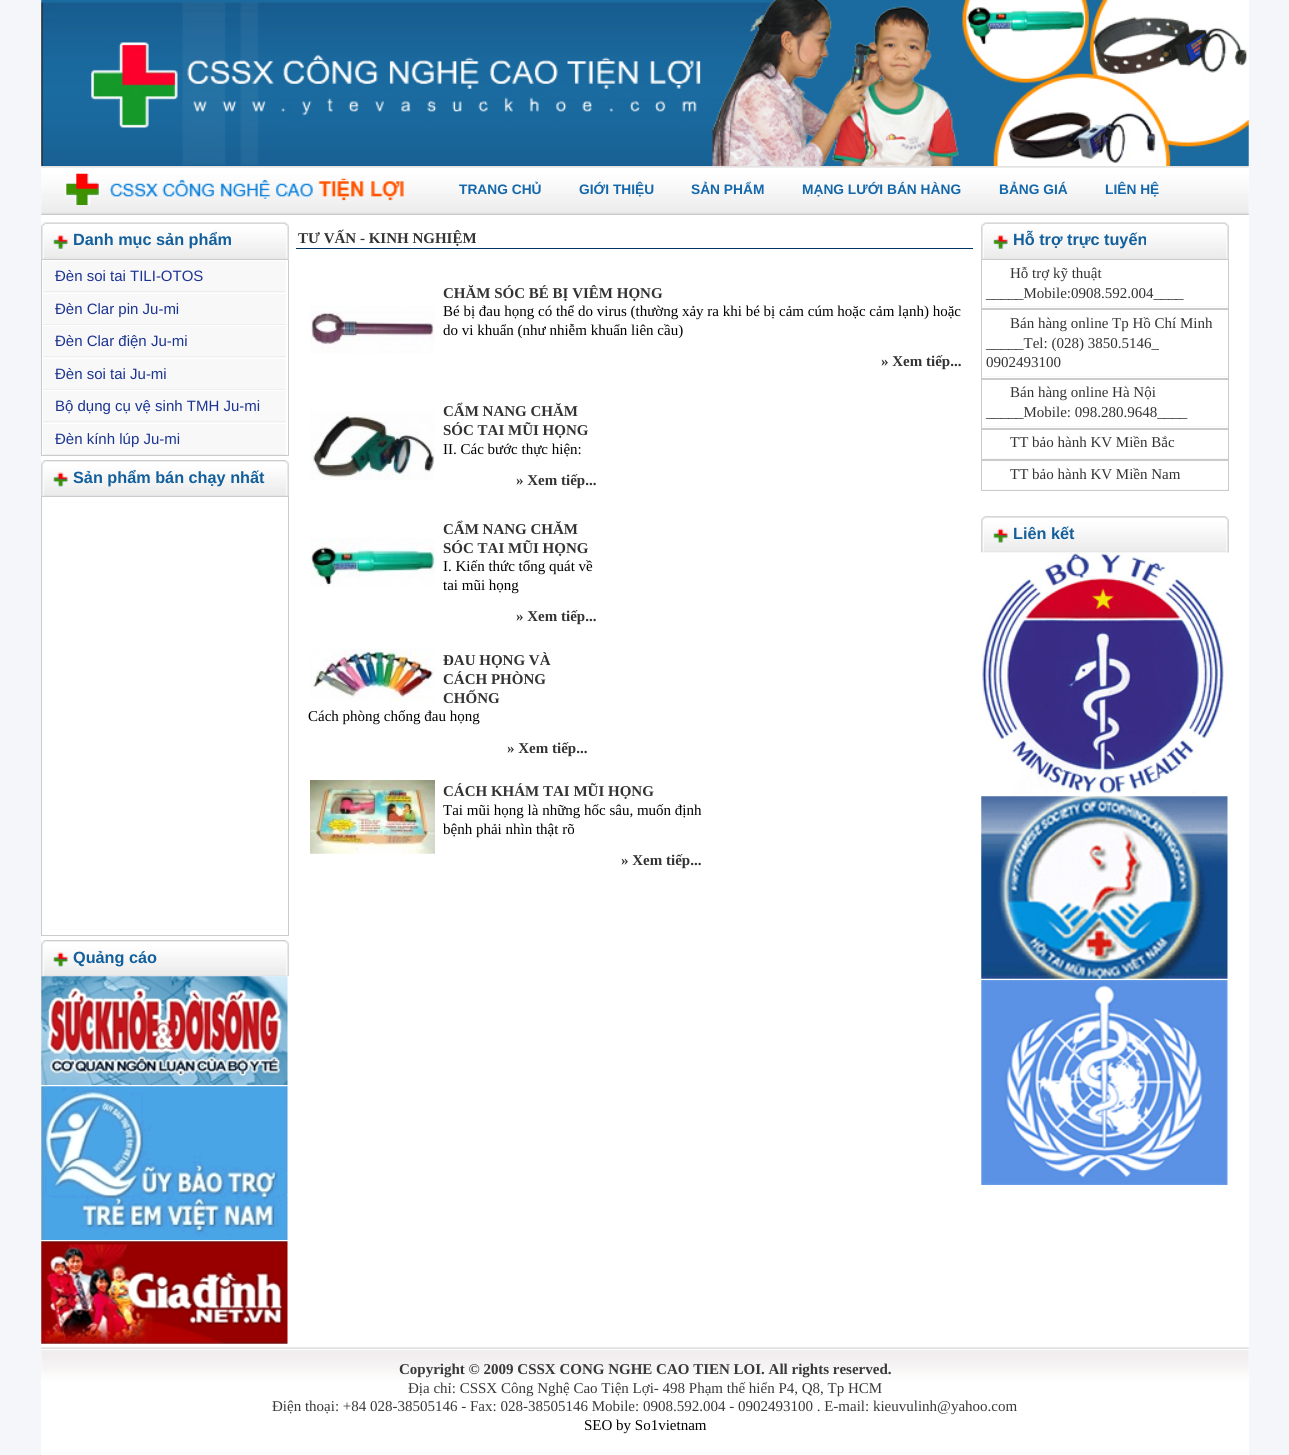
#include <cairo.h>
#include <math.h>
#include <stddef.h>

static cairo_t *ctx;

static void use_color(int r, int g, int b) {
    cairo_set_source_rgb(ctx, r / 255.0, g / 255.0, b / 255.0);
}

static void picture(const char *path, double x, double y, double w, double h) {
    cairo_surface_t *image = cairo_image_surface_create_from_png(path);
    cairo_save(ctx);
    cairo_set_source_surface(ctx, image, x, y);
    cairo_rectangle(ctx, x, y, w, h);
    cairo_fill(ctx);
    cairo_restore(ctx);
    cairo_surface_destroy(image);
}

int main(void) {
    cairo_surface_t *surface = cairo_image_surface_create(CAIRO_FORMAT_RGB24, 1289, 1455);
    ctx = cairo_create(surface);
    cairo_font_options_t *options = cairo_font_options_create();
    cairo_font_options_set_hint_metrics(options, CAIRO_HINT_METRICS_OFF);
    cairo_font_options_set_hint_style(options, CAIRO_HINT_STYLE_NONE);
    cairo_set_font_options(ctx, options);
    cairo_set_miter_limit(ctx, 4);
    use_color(245, 246, 250);
    cairo_paint(ctx);
    use_color(255, 255, 255);
    cairo_rectangle(ctx, 41, 0, 1208, 1455);
    cairo_fill(ctx);
    picture("img1.png", 41, 0, 1208, 166);
    picture("img2.png", 41, 166, 1208, 49);
    picture("img3.png", 65, 173, 339, 32);
    cairo_select_font_face(ctx, "Liberation Sans", CAIRO_FONT_SLANT_NORMAL, CAIRO_FONT_WEIGHT_BOLD);
    cairo_set_font_size(ctx, 13.75);
    use_color(19, 103, 170);
    cairo_move_to(ctx, 459, 194);
    cairo_show_text(ctx, "TRANG CHỦ");
    cairo_move_to(ctx, 579, 194);
    cairo_show_text(ctx, "GIỚI THIỆU");
    cairo_move_to(ctx, 691, 194);
    cairo_show_text(ctx, "SẢN PHẨM");
    cairo_move_to(ctx, 802, 194);
    cairo_show_text(ctx, "MẠNG LƯỚI BÁN HÀNG");
    cairo_move_to(ctx, 999, 194);
    cairo_show_text(ctx, "BẢNG GIÁ");
    cairo_move_to(ctx, 1105, 194);
    cairo_show_text(ctx, "LIÊN HỆ");
    use_color(248, 248, 248);
    cairo_rectangle(ctx, 41, 223, 248, 36);
    cairo_fill(ctx);
    picture("img4.png", 41, 222, 248, 37);
    cairo_set_font_size(ctx, 16.25);
    use_color(18, 95, 156);
    cairo_move_to(ctx, 73, 245);
    cairo_show_text(ctx, "Danh mục sản phẩm");
    cairo_rectangle(ctx, 41.5, 259.5, 247, 196);
    use_color(203, 203, 203);
    cairo_set_line_width(ctx, 1);
    cairo_stroke(ctx);
    use_color(248, 248, 248);
    cairo_rectangle(ctx, 43, 261, 243, 32);
    cairo_fill(ctx);
    use_color(238, 238, 238);
    cairo_rectangle(ctx, 43, 291, 243, 1);
    cairo_fill(ctx);
    cairo_select_font_face(ctx, "Liberation Sans", CAIRO_FONT_SLANT_NORMAL, CAIRO_FONT_WEIGHT_NORMAL);
    cairo_set_font_size(ctx, 15);
    use_color(27, 52, 145);
    cairo_move_to(ctx, 55, 281);
    cairo_show_text(ctx, "Đèn soi tai TILI-OTOS");
    use_color(248, 248, 248);
    cairo_rectangle(ctx, 43, 294, 243, 30);
    cairo_fill(ctx);
    use_color(238, 238, 238);
    cairo_rectangle(ctx, 43, 324, 243, 1);
    cairo_fill(ctx);
    use_color(27, 52, 145);
    cairo_move_to(ctx, 55, 314);
    cairo_show_text(ctx, "Đèn Clar pin Ju-mi");
    use_color(248, 248, 248);
    cairo_rectangle(ctx, 43, 326, 243, 32);
    cairo_fill(ctx);
    use_color(238, 238, 238);
    cairo_rectangle(ctx, 43, 356, 243, 1);
    cairo_fill(ctx);
    use_color(27, 52, 145);
    cairo_move_to(ctx, 55, 346);
    cairo_show_text(ctx, "Đèn Clar điện Ju-mi");
    use_color(248, 248, 248);
    cairo_rectangle(ctx, 43, 359, 243, 30);
    cairo_fill(ctx);
    use_color(238, 238, 238);
    cairo_rectangle(ctx, 43, 389, 243, 1);
    cairo_fill(ctx);
    use_color(27, 52, 145);
    cairo_move_to(ctx, 55, 379);
    cairo_show_text(ctx, "Đèn soi tai Ju-mi");
    use_color(248, 248, 248);
    cairo_rectangle(ctx, 43, 391, 243, 32);
    cairo_fill(ctx);
    use_color(238, 238, 238);
    cairo_rectangle(ctx, 43, 421, 243, 1);
    cairo_fill(ctx);
    use_color(27, 52, 145);
    cairo_move_to(ctx, 55, 411);
    cairo_show_text(ctx, "Bộ dụng cụ vệ sinh TMH Ju-mi");
    use_color(248, 248, 248);
    cairo_rectangle(ctx, 43, 424, 243, 30);
    cairo_fill(ctx);
    use_color(238, 238, 238);
    cairo_rectangle(ctx, 43, 454, 243, 1);
    cairo_fill(ctx);
    use_color(27, 52, 145);
    cairo_move_to(ctx, 55, 444);
    cairo_show_text(ctx, "Đèn kính lúp Ju-mi");
    picture("img5.png", 41, 460, 248, 36);
    cairo_select_font_face(ctx, "Liberation Sans", CAIRO_FONT_SLANT_NORMAL, CAIRO_FONT_WEIGHT_BOLD);
    cairo_set_font_size(ctx, 16.25);
    use_color(18, 95, 156);
    cairo_move_to(ctx, 73, 483);
    cairo_show_text(ctx, "Sản phẩm bán chạy nhất");
    cairo_rectangle(ctx, 41.5, 496.5, 247, 439);
    use_color(203, 203, 203);
    cairo_stroke(ctx);
    picture("img6.png", 41, 940, 248, 37);
    use_color(18, 95, 156);
    cairo_move_to(ctx, 73, 963);
    cairo_show_text(ctx, "Quảng cáo");
    picture("img7.png", 41, 976, 247, 109);
    picture("img8.png", 41, 1086, 247, 154);
    picture("img9.png", 41, 1241, 247, 103);
    cairo_select_font_face(ctx, "Liberation Serif", CAIRO_FONT_SLANT_NORMAL, CAIRO_FONT_WEIGHT_BOLD);
    cairo_set_font_size(ctx, 15);
    use_color(51, 51, 51);
    cairo_move_to(ctx, 298, 243);
    cairo_show_text(ctx, "TƯ VẤN - KINH NGHIỆM");
    use_color(0, 51, 102);
    cairo_rectangle(ctx, 296, 248, 677, 1);
    cairo_fill(ctx);
    use_color(51, 51, 51);
    cairo_move_to(ctx, 443, 298);
    cairo_show_text(ctx, "CHĂM SÓC BÉ BỊ VIÊM HỌNG");
    picture("img10.png", 310, 306, 125, 48);
    cairo_select_font_face(ctx, "Liberation Serif", CAIRO_FONT_SLANT_NORMAL, CAIRO_FONT_WEIGHT_NORMAL);
    use_color(0, 0, 0);
    cairo_move_to(ctx, 443, 316);
    cairo_show_text(ctx, "Bé bị đau họng có thể do virus (thường xảy ra khi bé bị cảm cúm hoặc cảm lạnh) hoặc");
    cairo_move_to(ctx, 443, 335);
    cairo_show_text(ctx, "do vi khuẩn (như nhiễm khuẩn liên cầu)");
    cairo_select_font_face(ctx, "Liberation Serif", CAIRO_FONT_SLANT_NORMAL, CAIRO_FONT_WEIGHT_BOLD);
    use_color(51, 51, 51);
    cairo_move_to(ctx, 881, 366);
    cairo_show_text(ctx, "» Xem tiếp...");
    picture("img11.png", 310, 411, 125, 69);
    cairo_move_to(ctx, 443, 416);
    cairo_show_text(ctx, "CẨM NANG CHĂM");
    cairo_move_to(ctx, 443, 435);
    cairo_show_text(ctx, "SÓC TAI MŨI HỌNG");
    cairo_select_font_face(ctx, "Liberation Serif", CAIRO_FONT_SLANT_NORMAL, CAIRO_FONT_WEIGHT_NORMAL);
    use_color(0, 0, 0);
    cairo_move_to(ctx, 443, 454);
    cairo_show_text(ctx, "II. Các bước thực hiện:");
    cairo_select_font_face(ctx, "Liberation Serif", CAIRO_FONT_SLANT_NORMAL, CAIRO_FONT_WEIGHT_BOLD);
    use_color(51, 51, 51);
    cairo_move_to(ctx, 516, 485);
    cairo_show_text(ctx, "» Xem tiếp...");
    picture("img12.png", 310, 537, 125, 50);
    cairo_move_to(ctx, 443, 534);
    cairo_show_text(ctx, "CẨM NANG CHĂM");
    cairo_move_to(ctx, 443, 553);
    cairo_show_text(ctx, "SÓC TAI MŨI HỌNG");
    cairo_select_font_face(ctx, "Liberation Serif", CAIRO_FONT_SLANT_NORMAL, CAIRO_FONT_WEIGHT_NORMAL);
    use_color(0, 0, 0);
    cairo_move_to(ctx, 443, 571);
    cairo_show_text(ctx, "I. Kiến thức tổng quát về");
    cairo_move_to(ctx, 443, 590);
    cairo_show_text(ctx, "tai mũi họng");
    cairo_select_font_face(ctx, "Liberation Serif", CAIRO_FONT_SLANT_NORMAL, CAIRO_FONT_WEIGHT_BOLD);
    use_color(51, 51, 51);
    cairo_move_to(ctx, 516, 621);
    cairo_show_text(ctx, "» Xem tiếp...");
    picture("img13.png", 310, 648, 125, 54);
    cairo_move_to(ctx, 443, 665);
    cairo_show_text(ctx, "ĐAU HỌNG VÀ");
    cairo_move_to(ctx, 443, 684);
    cairo_show_text(ctx, "CÁCH PHÒNG");
    cairo_move_to(ctx, 443, 703);
    cairo_show_text(ctx, "CHỐNG");
    cairo_select_font_face(ctx, "Liberation Serif", CAIRO_FONT_SLANT_NORMAL, CAIRO_FONT_WEIGHT_NORMAL);
    use_color(0, 0, 0);
    cairo_move_to(ctx, 308, 721);
    cairo_show_text(ctx, "Cách phòng chống đau họng");
    cairo_select_font_face(ctx, "Liberation Serif", CAIRO_FONT_SLANT_NORMAL, CAIRO_FONT_WEIGHT_BOLD);
    use_color(51, 51, 51);
    cairo_move_to(ctx, 507, 753);
    cairo_show_text(ctx, "» Xem tiếp...");
    picture("img14.png", 310, 780, 125, 74);
    cairo_move_to(ctx, 443, 796);
    cairo_show_text(ctx, "CÁCH KHÁM TAI MŨI HỌNG");
    cairo_select_font_face(ctx, "Liberation Serif", CAIRO_FONT_SLANT_NORMAL, CAIRO_FONT_WEIGHT_NORMAL);
    use_color(0, 0, 0);
    cairo_move_to(ctx, 443, 815);
    cairo_show_text(ctx, "Tai mũi họng là những hốc sâu, muốn định");
    cairo_move_to(ctx, 443, 834);
    cairo_show_text(ctx, "bệnh phải nhìn thật rõ");
    cairo_select_font_face(ctx, "Liberation Serif", CAIRO_FONT_SLANT_NORMAL, CAIRO_FONT_WEIGHT_BOLD);
    use_color(51, 51, 51);
    cairo_move_to(ctx, 621, 865);
    cairo_show_text(ctx, "» Xem tiếp...");
    use_color(248, 248, 248);
    cairo_rectangle(ctx, 981, 223, 248, 36);
    cairo_fill(ctx);
    picture("img15.png", 981, 222, 248, 37);
    cairo_select_font_face(ctx, "Liberation Sans", CAIRO_FONT_SLANT_NORMAL, CAIRO_FONT_WEIGHT_BOLD);
    cairo_set_font_size(ctx, 16.25);
    use_color(18, 95, 156);
    cairo_move_to(ctx, 1013, 245);
    cairo_show_text(ctx, "Hỗ trợ trực tuyến");
    cairo_rectangle(ctx, 981.5, 259.5, 247, 49);
    use_color(203, 203, 203);
    cairo_stroke(ctx);
    use_color(248, 248, 248);
    cairo_rectangle(ctx, 983, 306, 245, 1);
    cairo_fill(ctx);
    cairo_select_font_face(ctx, "Liberation Serif", CAIRO_FONT_SLANT_NORMAL, CAIRO_FONT_WEIGHT_NORMAL);
    cairo_set_font_size(ctx, 15);
    use_color(51, 51, 51);
    cairo_move_to(ctx, 1010, 278);
    cairo_show_text(ctx, "Hỗ trợ kỹ thuật");
    cairo_move_to(ctx, 986, 298);
    cairo_show_text(ctx, "_____Mobile:0908.592.004____");
    cairo_rectangle(ctx, 981.5, 309.5, 247, 69);
    use_color(203, 203, 203);
    cairo_stroke(ctx);
    use_color(248, 248, 248);
    cairo_rectangle(ctx, 983, 376, 245, 1);
    cairo_fill(ctx);
    use_color(51, 51, 51);
    cairo_move_to(ctx, 1010, 328);
    cairo_show_text(ctx, "Bán hàng online Tp Hồ Chí Minh");
    cairo_move_to(ctx, 986, 348);
    cairo_show_text(ctx, "_____Tel: (028) 3850.5146_");
    cairo_move_to(ctx, 986, 367);
    cairo_show_text(ctx, "0902493100");
    cairo_rectangle(ctx, 981.5, 379.5, 247, 49);
    use_color(203, 203, 203);
    cairo_stroke(ctx);
    use_color(248, 248, 248);
    cairo_rectangle(ctx, 983, 426, 245, 1);
    cairo_fill(ctx);
    use_color(51, 51, 51);
    cairo_move_to(ctx, 1010, 397);
    cairo_show_text(ctx, "Bán hàng online Hà Nội");
    cairo_move_to(ctx, 986, 417);
    cairo_show_text(ctx, "_____Mobile: 098.280.9648____");
    cairo_rectangle(ctx, 981.5, 429.5, 247, 30);
    use_color(203, 203, 203);
    cairo_stroke(ctx);
    use_color(248, 248, 248);
    cairo_rectangle(ctx, 983, 458, 245, 1);
    cairo_fill(ctx);
    use_color(51, 51, 51);
    cairo_move_to(ctx, 1010, 447);
    cairo_show_text(ctx, "TT bảo hành KV Miền Bắc");
    cairo_rectangle(ctx, 981.5, 460.5, 247, 30);
    use_color(203, 203, 203);
    cairo_stroke(ctx);
    use_color(248, 248, 248);
    cairo_rectangle(ctx, 983, 489, 245, 1);
    cairo_fill(ctx);
    use_color(51, 51, 51);
    cairo_move_to(ctx, 1010, 479);
    cairo_show_text(ctx, "TT bảo hành KV Miền Nam");
    use_color(248, 248, 248);
    cairo_rectangle(ctx, 981, 516, 248, 37);
    cairo_fill(ctx);
    picture("img16.png", 981, 516, 248, 37);
    cairo_select_font_face(ctx, "Liberation Sans", CAIRO_FONT_SLANT_NORMAL, CAIRO_FONT_WEIGHT_BOLD);
    cairo_set_font_size(ctx, 16.25);
    use_color(18, 95, 156);
    cairo_move_to(ctx, 1013, 539);
    cairo_show_text(ctx, "Liên kết");
    picture("img17.png", 981, 552, 247, 242);
    picture("img18.png", 981, 796, 247, 183);
    picture("img19.png", 981, 980, 247, 205);
    picture("img20.png", 41, 1347, 1208, 108);
    cairo_select_font_face(ctx, "Liberation Serif", CAIRO_FONT_SLANT_NORMAL, CAIRO_FONT_WEIGHT_BOLD);
    cairo_set_font_size(ctx, 15);
    use_color(57, 57, 57);
    cairo_move_to(ctx, 399, 1374);
    cairo_show_text(ctx, "Copyright © 2009 CSSX CONG NGHE CAO TIEN LOI. All rights reserved.");
    cairo_select_font_face(ctx, "Liberation Serif", CAIRO_FONT_SLANT_NORMAL, CAIRO_FONT_WEIGHT_NORMAL);
    cairo_move_to(ctx, 408, 1393);
    cairo_show_text(ctx, "Địa chỉ: CSSX Công Nghệ Cao Tiện Lợi- 498 Phạm thế hiển P4, Q8, Tp HCM");
    cairo_move_to(ctx, 272, 1411);
    cairo_show_text(ctx, "Điện thoại: +84 028-38505146 - Fax: 028-38505146 Mobile: 0908.592.004 - 0902493100 . E-mail: kieuvulinh@yahoo.com");
    use_color(0, 0, 0);
    cairo_move_to(ctx, 584, 1430);
    cairo_show_text(ctx, "SEO by So1vietnam");
    cairo_surface_write_to_png(surface, "result.png");
    cairo_font_options_destroy(options);
    cairo_destroy(ctx);
    cairo_surface_destroy(surface);
    return 0;
}
